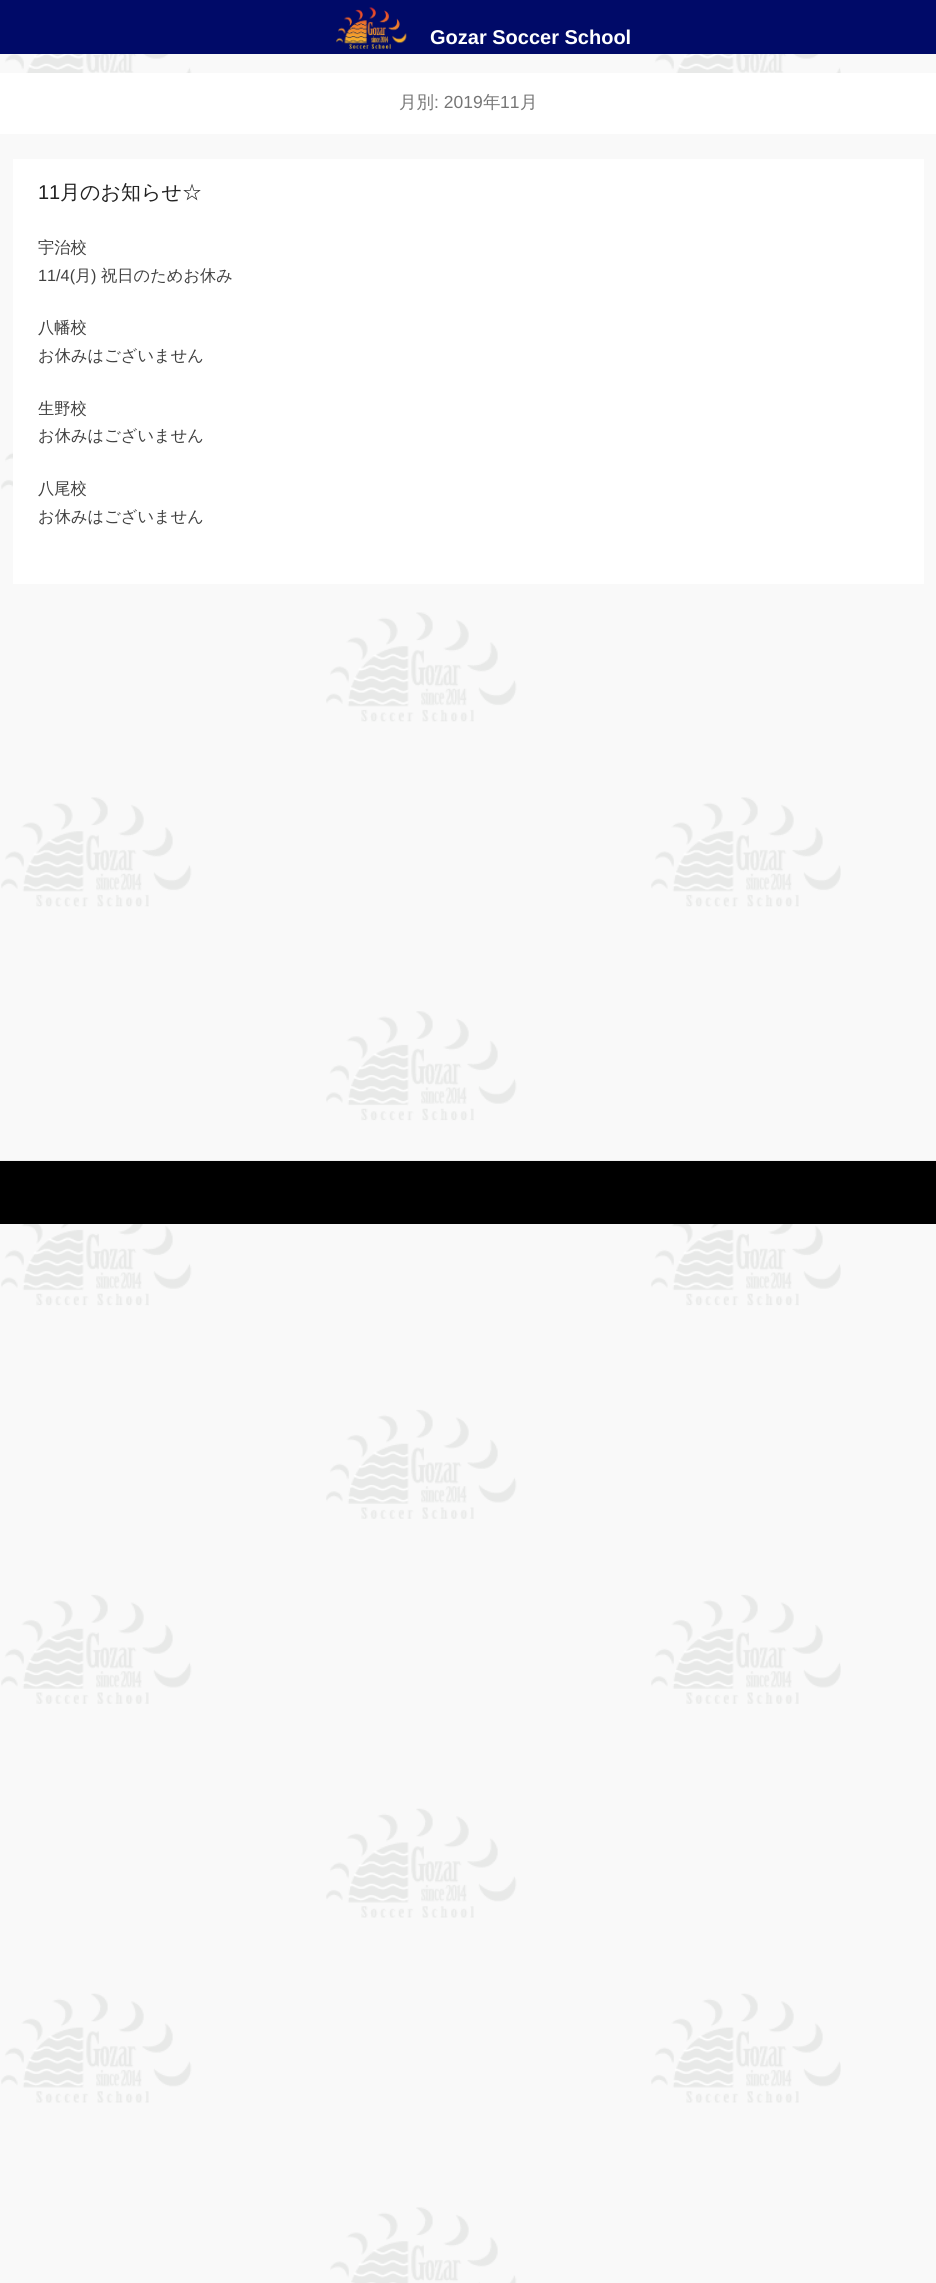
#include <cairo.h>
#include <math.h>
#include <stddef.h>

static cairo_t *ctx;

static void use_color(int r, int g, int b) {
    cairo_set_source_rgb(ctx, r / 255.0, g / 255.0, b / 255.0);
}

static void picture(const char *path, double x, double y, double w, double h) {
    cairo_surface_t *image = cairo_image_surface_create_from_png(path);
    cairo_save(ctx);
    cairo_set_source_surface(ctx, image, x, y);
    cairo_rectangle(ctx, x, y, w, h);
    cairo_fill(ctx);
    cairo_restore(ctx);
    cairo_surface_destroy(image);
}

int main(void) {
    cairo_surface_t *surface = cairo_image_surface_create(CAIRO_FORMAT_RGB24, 936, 2283);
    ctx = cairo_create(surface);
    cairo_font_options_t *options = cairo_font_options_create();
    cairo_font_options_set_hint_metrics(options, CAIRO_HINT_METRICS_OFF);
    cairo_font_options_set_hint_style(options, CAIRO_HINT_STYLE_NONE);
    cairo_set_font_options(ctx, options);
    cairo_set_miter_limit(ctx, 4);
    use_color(249, 249, 249);
    cairo_paint(ctx);
    picture("img1.png", 1, 54, 840, 2229);
    use_color(0, 10, 104);
    cairo_rectangle(ctx, 0, 0, 936, 54);
    cairo_fill(ctx);
    picture("img2.png", 336, 7, 71, 42);
    cairo_select_font_face(ctx, "Liberation Sans", CAIRO_FONT_SLANT_NORMAL, CAIRO_FONT_WEIGHT_BOLD);
    cairo_set_font_size(ctx, 20);
    use_color(255, 255, 255);
    cairo_move_to(ctx, 430, 44);
    cairo_show_text(ctx, "Gozar Soccer School");
    cairo_rectangle(ctx, 0, 73, 936, 61);
    cairo_fill(ctx);
    cairo_select_font_face(ctx, "WenQuanYi Zen Hei Medium", CAIRO_FONT_SLANT_NORMAL, CAIRO_FONT_WEIGHT_NORMAL);
    cairo_set_font_size(ctx, 17.5);
    use_color(117, 117, 117);
    cairo_move_to(ctx, 399, 108);
    cairo_show_text(ctx, "月別");
    cairo_select_font_face(ctx, "Liberation Sans", CAIRO_FONT_SLANT_NORMAL, CAIRO_FONT_WEIGHT_NORMAL);
    cairo_move_to(ctx, 434, 108);
    cairo_show_text(ctx, ": 2019");
    cairo_select_font_face(ctx, "WenQuanYi Zen Hei Medium", CAIRO_FONT_SLANT_NORMAL, CAIRO_FONT_WEIGHT_NORMAL);
    cairo_move_to(ctx, 483, 108);
    cairo_show_text(ctx, "年");
    cairo_select_font_face(ctx, "Liberation Sans", CAIRO_FONT_SLANT_NORMAL, CAIRO_FONT_WEIGHT_NORMAL);
    cairo_move_to(ctx, 500, 108);
    cairo_show_text(ctx, "11");
    cairo_select_font_face(ctx, "WenQuanYi Zen Hei Medium", CAIRO_FONT_SLANT_NORMAL, CAIRO_FONT_WEIGHT_NORMAL);
    cairo_move_to(ctx, 520, 108);
    cairo_show_text(ctx, "月");
    use_color(255, 255, 255);
    cairo_rectangle(ctx, 13, 159, 911, 425);
    cairo_fill(ctx);
    cairo_select_font_face(ctx, "Liberation Sans", CAIRO_FONT_SLANT_NORMAL, CAIRO_FONT_WEIGHT_NORMAL);
    cairo_set_font_size(ctx, 20);
    use_color(34, 34, 34);
    cairo_move_to(ctx, 38, 199);
    cairo_show_text(ctx, "11");
    cairo_select_font_face(ctx, "WenQuanYi Zen Hei Medium", CAIRO_FONT_SLANT_NORMAL, CAIRO_FONT_WEIGHT_NORMAL);
    cairo_move_to(ctx, 60, 199);
    cairo_show_text(ctx, "月のお知らせ☆");
    cairo_set_font_size(ctx, 16.25);
    use_color(64, 64, 64);
    cairo_move_to(ctx, 38, 253);
    cairo_show_text(ctx, "宇治校");
    cairo_select_font_face(ctx, "Liberation Sans", CAIRO_FONT_SLANT_NORMAL, CAIRO_FONT_WEIGHT_NORMAL);
    cairo_move_to(ctx, 38, 281);
    cairo_show_text(ctx, "11/4(");
    cairo_select_font_face(ctx, "WenQuanYi Zen Hei Medium", CAIRO_FONT_SLANT_NORMAL, CAIRO_FONT_WEIGHT_NORMAL);
    cairo_move_to(ctx, 75, 281);
    cairo_show_text(ctx, "月");
    cairo_select_font_face(ctx, "Liberation Sans", CAIRO_FONT_SLANT_NORMAL, CAIRO_FONT_WEIGHT_NORMAL);
    cairo_move_to(ctx, 91, 281);
    cairo_show_text(ctx, ")");
    cairo_select_font_face(ctx, "WenQuanYi Zen Hei Medium", CAIRO_FONT_SLANT_NORMAL, CAIRO_FONT_WEIGHT_NORMAL);
    cairo_move_to(ctx, 101, 281);
    cairo_show_text(ctx, "祝日のためお休み");
    cairo_move_to(ctx, 38, 333);
    cairo_show_text(ctx, "八幡校");
    cairo_move_to(ctx, 38, 361);
    cairo_show_text(ctx, "お休みはございません");
    cairo_move_to(ctx, 38, 414);
    cairo_show_text(ctx, "生野校");
    cairo_move_to(ctx, 38, 441);
    cairo_show_text(ctx, "お休みはございません");
    cairo_move_to(ctx, 38, 494);
    cairo_show_text(ctx, "八尾校");
    cairo_move_to(ctx, 38, 522);
    cairo_show_text(ctx, "お休みはございません");
    use_color(238, 238, 238);
    cairo_rectangle(ctx, 0, 1160, 936, 1);
    cairo_fill(ctx);
    use_color(0, 0, 0);
    cairo_rectangle(ctx, 0, 1161, 936, 63);
    cairo_fill(ctx);
    cairo_surface_write_to_png(surface, "result.png");
    cairo_font_options_destroy(options);
    cairo_destroy(ctx);
    cairo_surface_destroy(surface);
    return 0;
}
